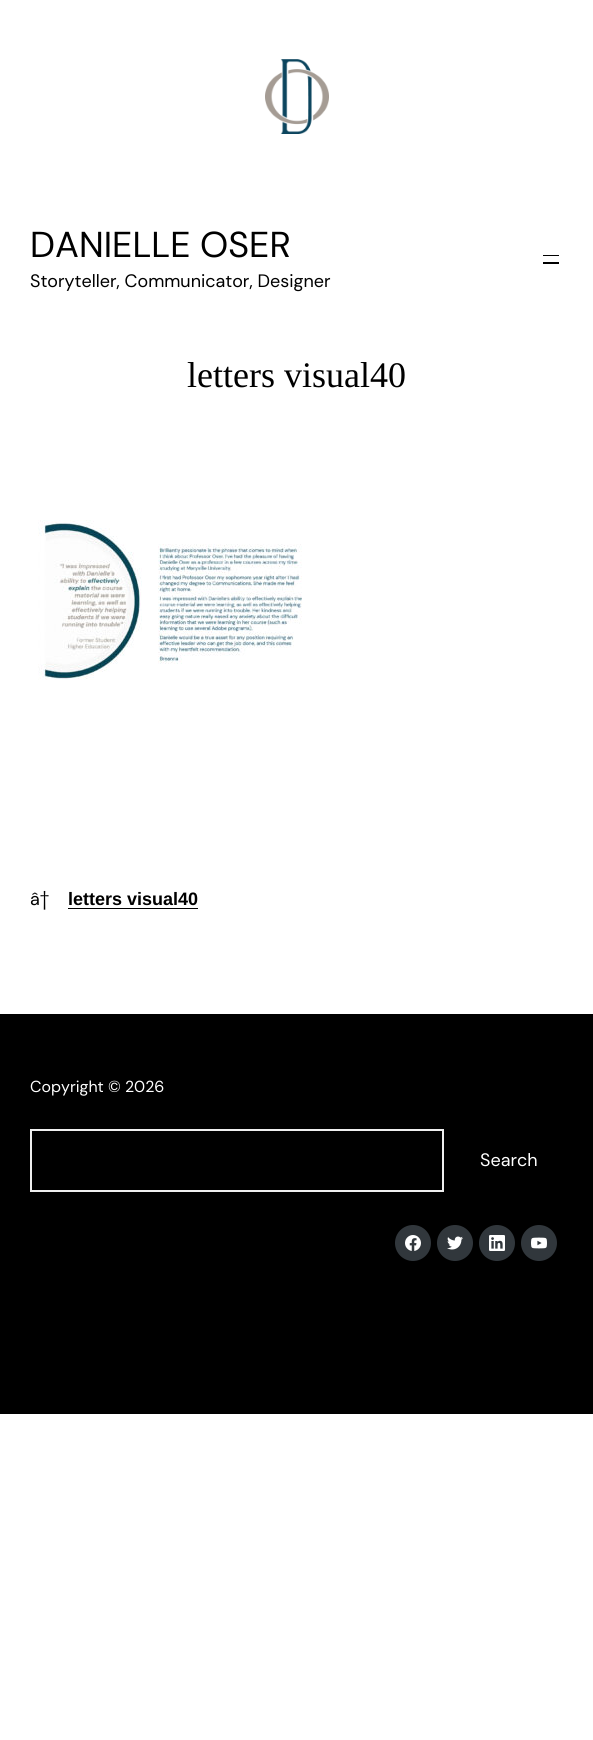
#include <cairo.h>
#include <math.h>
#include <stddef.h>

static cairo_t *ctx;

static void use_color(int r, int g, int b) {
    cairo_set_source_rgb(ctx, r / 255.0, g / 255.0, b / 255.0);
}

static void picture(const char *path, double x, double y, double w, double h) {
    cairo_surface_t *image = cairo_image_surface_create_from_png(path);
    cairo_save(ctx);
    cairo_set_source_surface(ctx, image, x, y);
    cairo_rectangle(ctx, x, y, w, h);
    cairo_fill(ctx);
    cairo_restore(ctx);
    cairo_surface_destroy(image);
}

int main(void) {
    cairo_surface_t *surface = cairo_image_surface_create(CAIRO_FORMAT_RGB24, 593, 1740);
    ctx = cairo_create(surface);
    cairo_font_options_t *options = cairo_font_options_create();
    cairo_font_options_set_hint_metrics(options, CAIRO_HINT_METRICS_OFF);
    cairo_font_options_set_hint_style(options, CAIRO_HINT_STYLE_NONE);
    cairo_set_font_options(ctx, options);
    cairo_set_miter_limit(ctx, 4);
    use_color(255, 255, 255);
    cairo_paint(ctx);
    picture("img1.png", 265, 59, 64, 75);
    cairo_select_font_face(ctx, "DM Sans", CAIRO_FONT_SLANT_NORMAL, CAIRO_FONT_WEIGHT_NORMAL);
    cairo_set_font_size(ctx, 36);
    use_color(0, 0, 0);
    cairo_move_to(ctx, 30, 257);
    cairo_show_text(ctx, "DANIELLE OSER");
    cairo_set_font_size(ctx, 18);
    cairo_move_to(ctx, 30, 287);
    cairo_show_text(ctx, "Storyteller, Communicator, Designer");
    cairo_rectangle(ctx, 543, 255, 16, 1);
    cairo_fill(ctx);
    cairo_rectangle(ctx, 543, 262, 16, 2);
    cairo_fill(ctx);
    cairo_select_font_face(ctx, "Liberation Serif", CAIRO_FONT_SLANT_NORMAL, CAIRO_FONT_WEIGHT_NORMAL);
    cairo_set_font_size(ctx, 36);
    cairo_move_to(ctx, 187, 387);
    cairo_show_text(ctx, "letters visual40");
    picture("img2.png", 38, 520, 264, 160);
    cairo_select_font_face(ctx, "DM Sans", CAIRO_FONT_SLANT_NORMAL, CAIRO_FONT_WEIGHT_NORMAL);
    cairo_set_font_size(ctx, 18);
    cairo_move_to(ctx, 30, 905);
    cairo_show_text(ctx, "â†");
    cairo_select_font_face(ctx, "Liberation Sans", CAIRO_FONT_SLANT_NORMAL, CAIRO_FONT_WEIGHT_BOLD);
    cairo_move_to(ctx, 68, 905);
    cairo_show_text(ctx, "letters visual40");
    cairo_rectangle(ctx, 68, 908, 130, 1);
    cairo_fill(ctx);
    cairo_rectangle(ctx, 0, 1014, 593, 400);
    cairo_fill(ctx);
    cairo_select_font_face(ctx, "DM Sans", CAIRO_FONT_SLANT_NORMAL, CAIRO_FONT_WEIGHT_NORMAL);
    cairo_set_font_size(ctx, 16);
    use_color(255, 255, 255);
    cairo_move_to(ctx, 30, 1092);
    cairo_show_text(ctx, "Copyright © 2026");
    cairo_rectangle(ctx, 31, 1130, 412, 61);
    use_color(239, 239, 239);
    cairo_stroke(ctx);
    cairo_set_font_size(ctx, 18);
    use_color(255, 255, 255);
    cairo_move_to(ctx, 480, 1166);
    cairo_show_text(ctx, "Search");
    use_color(49, 55, 60);
    cairo_new_path(ctx);
    cairo_arc(ctx, 413, 1243, 18, 0, 2 * M_PI);
    cairo_fill(ctx);
    picture("img3.png", 405, 1235, 16, 16);
    cairo_arc(ctx, 455, 1243, 18, 0, 2 * M_PI);
    cairo_fill(ctx);
    picture("img4.png", 447, 1236, 16, 14);
    cairo_arc(ctx, 497, 1243, 18, 0, 2 * M_PI);
    cairo_fill(ctx);
    picture("img5.png", 489, 1235, 16, 16);
    cairo_arc(ctx, 539, 1243, 18, 0, 2 * M_PI);
    cairo_fill(ctx);
    picture("img6.png", 531, 1237, 16, 12);
    cairo_surface_write_to_png(surface, "result.png");
    cairo_font_options_destroy(options);
    cairo_destroy(ctx);
    cairo_surface_destroy(surface);
    return 0;
}
